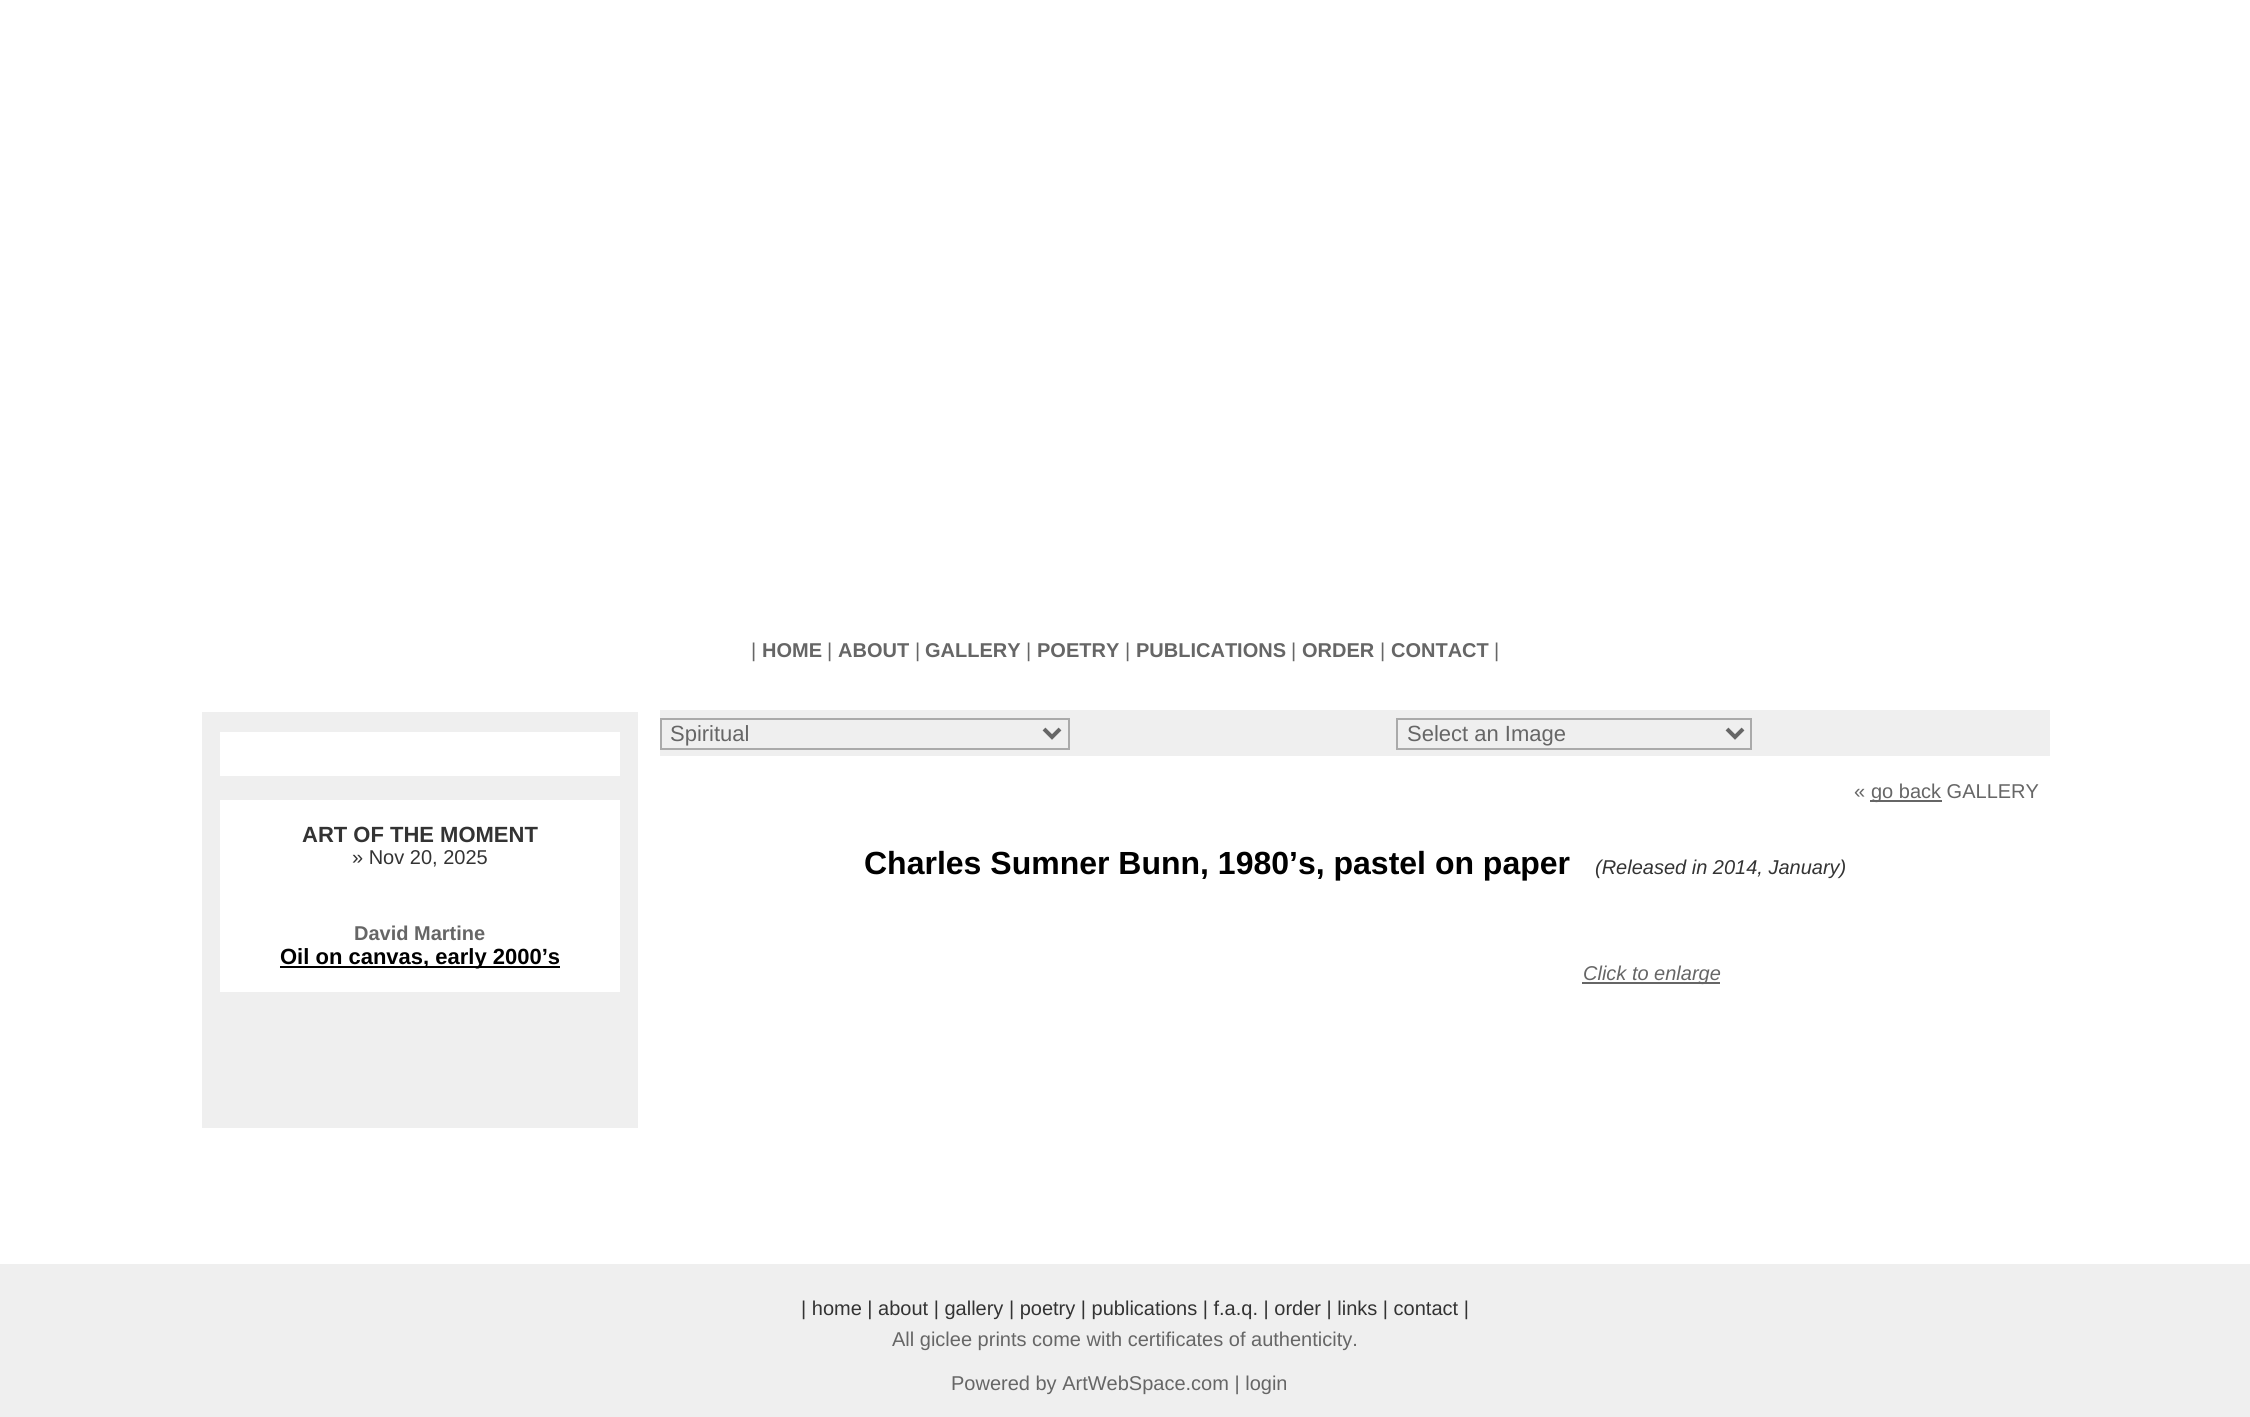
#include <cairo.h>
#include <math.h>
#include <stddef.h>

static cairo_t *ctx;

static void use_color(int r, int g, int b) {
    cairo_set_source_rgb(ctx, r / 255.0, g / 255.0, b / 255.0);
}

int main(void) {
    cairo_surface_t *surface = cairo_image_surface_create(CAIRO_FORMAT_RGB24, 2250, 1417);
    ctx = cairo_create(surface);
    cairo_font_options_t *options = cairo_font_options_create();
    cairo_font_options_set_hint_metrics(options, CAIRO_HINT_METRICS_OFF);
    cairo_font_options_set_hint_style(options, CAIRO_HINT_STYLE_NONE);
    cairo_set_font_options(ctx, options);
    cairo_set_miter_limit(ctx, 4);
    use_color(255, 255, 255);
    cairo_paint(ctx);
    cairo_select_font_face(ctx, "Liberation Sans", CAIRO_FONT_SLANT_NORMAL, CAIRO_FONT_WEIGHT_NORMAL);
    cairo_set_font_size(ctx, 20);
    use_color(102, 102, 102);
    cairo_move_to(ctx, 751, 657);
    cairo_show_text(ctx, "|");
    cairo_select_font_face(ctx, "Liberation Sans", CAIRO_FONT_SLANT_NORMAL, CAIRO_FONT_WEIGHT_BOLD);
    cairo_move_to(ctx, 762, 657);
    cairo_show_text(ctx, "HOME");
    cairo_select_font_face(ctx, "Liberation Sans", CAIRO_FONT_SLANT_NORMAL, CAIRO_FONT_WEIGHT_NORMAL);
    cairo_move_to(ctx, 827, 657);
    cairo_show_text(ctx, "|");
    cairo_select_font_face(ctx, "Liberation Sans", CAIRO_FONT_SLANT_NORMAL, CAIRO_FONT_WEIGHT_BOLD);
    cairo_move_to(ctx, 838, 657);
    cairo_show_text(ctx, "ABOUT");
    cairo_select_font_face(ctx, "Liberation Sans", CAIRO_FONT_SLANT_NORMAL, CAIRO_FONT_WEIGHT_NORMAL);
    cairo_move_to(ctx, 915, 657);
    cairo_show_text(ctx, "|");
    cairo_select_font_face(ctx, "Liberation Sans", CAIRO_FONT_SLANT_NORMAL, CAIRO_FONT_WEIGHT_BOLD);
    cairo_move_to(ctx, 925, 657);
    cairo_show_text(ctx, "GALLERY");
    cairo_select_font_face(ctx, "Liberation Sans", CAIRO_FONT_SLANT_NORMAL, CAIRO_FONT_WEIGHT_NORMAL);
    cairo_move_to(ctx, 1026, 657);
    cairo_show_text(ctx, "|");
    cairo_select_font_face(ctx, "Liberation Sans", CAIRO_FONT_SLANT_NORMAL, CAIRO_FONT_WEIGHT_BOLD);
    cairo_move_to(ctx, 1037, 657);
    cairo_show_text(ctx, "POETRY");
    cairo_select_font_face(ctx, "Liberation Sans", CAIRO_FONT_SLANT_NORMAL, CAIRO_FONT_WEIGHT_NORMAL);
    cairo_move_to(ctx, 1125, 657);
    cairo_show_text(ctx, "|");
    cairo_select_font_face(ctx, "Liberation Sans", CAIRO_FONT_SLANT_NORMAL, CAIRO_FONT_WEIGHT_BOLD);
    cairo_move_to(ctx, 1136, 657);
    cairo_show_text(ctx, "PUBLICATIONS");
    cairo_select_font_face(ctx, "Liberation Sans", CAIRO_FONT_SLANT_NORMAL, CAIRO_FONT_WEIGHT_NORMAL);
    cairo_move_to(ctx, 1291, 657);
    cairo_show_text(ctx, "|");
    cairo_select_font_face(ctx, "Liberation Sans", CAIRO_FONT_SLANT_NORMAL, CAIRO_FONT_WEIGHT_BOLD);
    cairo_move_to(ctx, 1302, 657);
    cairo_show_text(ctx, "ORDER");
    cairo_select_font_face(ctx, "Liberation Sans", CAIRO_FONT_SLANT_NORMAL, CAIRO_FONT_WEIGHT_NORMAL);
    cairo_move_to(ctx, 1380, 657);
    cairo_show_text(ctx, "|");
    cairo_select_font_face(ctx, "Liberation Sans", CAIRO_FONT_SLANT_NORMAL, CAIRO_FONT_WEIGHT_BOLD);
    cairo_move_to(ctx, 1391, 657);
    cairo_show_text(ctx, "CONTACT");
    cairo_select_font_face(ctx, "Liberation Sans", CAIRO_FONT_SLANT_NORMAL, CAIRO_FONT_WEIGHT_NORMAL);
    cairo_move_to(ctx, 1494, 657);
    cairo_show_text(ctx, "|");
    use_color(239, 239, 239);
    cairo_rectangle(ctx, 202, 712, 436, 416);
    cairo_fill(ctx);
    use_color(255, 255, 255);
    cairo_rectangle(ctx, 220, 732, 400, 44);
    cairo_fill(ctx);
    cairo_rectangle(ctx, 220, 800, 400, 192);
    cairo_fill(ctx);
    cairo_select_font_face(ctx, "Liberation Sans", CAIRO_FONT_SLANT_NORMAL, CAIRO_FONT_WEIGHT_BOLD);
    cairo_set_font_size(ctx, 22);
    use_color(51, 51, 51);
    cairo_move_to(ctx, 302, 842);
    cairo_show_text(ctx, "ART OF THE MOMENT");
    cairo_select_font_face(ctx, "Liberation Sans", CAIRO_FONT_SLANT_NORMAL, CAIRO_FONT_WEIGHT_NORMAL);
    cairo_set_font_size(ctx, 20);
    cairo_move_to(ctx, 352, 864);
    cairo_show_text(ctx, "» Nov 20, 2025");
    cairo_select_font_face(ctx, "Liberation Sans", CAIRO_FONT_SLANT_NORMAL, CAIRO_FONT_WEIGHT_BOLD);
    use_color(102, 102, 102);
    cairo_move_to(ctx, 354, 940);
    cairo_show_text(ctx, "David Martine");
    use_color(0, 0, 0);
    cairo_rectangle(ctx, 280, 966, 280, 2);
    cairo_fill(ctx);
    cairo_set_font_size(ctx, 22);
    cairo_move_to(ctx, 280, 964);
    cairo_show_text(ctx, "Oil on canvas, early 2000’s");
    use_color(239, 239, 239);
    cairo_rectangle(ctx, 660, 710, 1390, 46);
    cairo_fill(ctx);
    cairo_rectangle(ctx, 661, 719, 408, 30);
    use_color(170, 170, 170);
    cairo_stroke(ctx);
    cairo_new_path(ctx);
    cairo_move_to(ctx, 1044, 729);
    cairo_line_to(ctx, 1052, 737);
    cairo_line_to(ctx, 1060, 729);
    use_color(102, 102, 102);
    cairo_set_line_width(ctx, 4);
    cairo_stroke(ctx);
    cairo_select_font_face(ctx, "Liberation Sans", CAIRO_FONT_SLANT_NORMAL, CAIRO_FONT_WEIGHT_NORMAL);
    cairo_move_to(ctx, 670, 741);
    cairo_show_text(ctx, "Spiritual");
    cairo_rectangle(ctx, 1397, 719, 354, 30);
    use_color(170, 170, 170);
    cairo_set_line_width(ctx, 2);
    cairo_stroke(ctx);
    cairo_new_path(ctx);
    cairo_move_to(ctx, 1727, 729);
    cairo_line_to(ctx, 1735, 737);
    cairo_line_to(ctx, 1743, 729);
    use_color(102, 102, 102);
    cairo_set_line_width(ctx, 4);
    cairo_stroke(ctx);
    cairo_move_to(ctx, 1407, 741);
    cairo_show_text(ctx, "Select an Image");
    cairo_set_font_size(ctx, 20);
    cairo_move_to(ctx, 1854, 798);
    cairo_show_text(ctx, "«");
    cairo_rectangle(ctx, 1870, 800, 72, 2);
    cairo_fill(ctx);
    cairo_move_to(ctx, 1871, 798);
    cairo_show_text(ctx, "go back GALLERY");
    cairo_select_font_face(ctx, "Liberation Sans", CAIRO_FONT_SLANT_NORMAL, CAIRO_FONT_WEIGHT_BOLD);
    cairo_set_font_size(ctx, 32);
    use_color(0, 0, 0);
    cairo_move_to(ctx, 864, 874);
    cairo_show_text(ctx, "Charles Sumner Bunn, 1980’s, pastel on paper");
    cairo_select_font_face(ctx, "Liberation Sans", CAIRO_FONT_SLANT_ITALIC, CAIRO_FONT_WEIGHT_NORMAL);
    cairo_set_font_size(ctx, 20);
    use_color(51, 51, 51);
    cairo_move_to(ctx, 1595, 874);
    cairo_show_text(ctx, "(Released in 2014, January)");
    use_color(102, 102, 102);
    cairo_rectangle(ctx, 1582, 982, 138, 2);
    cairo_fill(ctx);
    cairo_move_to(ctx, 1583, 980);
    cairo_show_text(ctx, "Click to enlarge");
    use_color(239, 239, 239);
    cairo_rectangle(ctx, 0, 1264, 2250, 153);
    cairo_fill(ctx);
    cairo_select_font_face(ctx, "Liberation Sans", CAIRO_FONT_SLANT_NORMAL, CAIRO_FONT_WEIGHT_NORMAL);
    use_color(51, 51, 51);
    cairo_move_to(ctx, 801, 1315);
    cairo_show_text(ctx, "| home | about | gallery | poetry | publications | f.a.q. | order | links | contact |");
    use_color(102, 102, 102);
    cairo_move_to(ctx, 892, 1346);
    cairo_show_text(ctx, "All giclee prints come with certificates of authenticity.");
    cairo_move_to(ctx, 951, 1390);
    cairo_show_text(ctx, "Powered by ArtWebSpace.com | login");
    cairo_surface_write_to_png(surface, "result.png");
    cairo_font_options_destroy(options);
    cairo_destroy(ctx);
    cairo_surface_destroy(surface);
    return 0;
}
